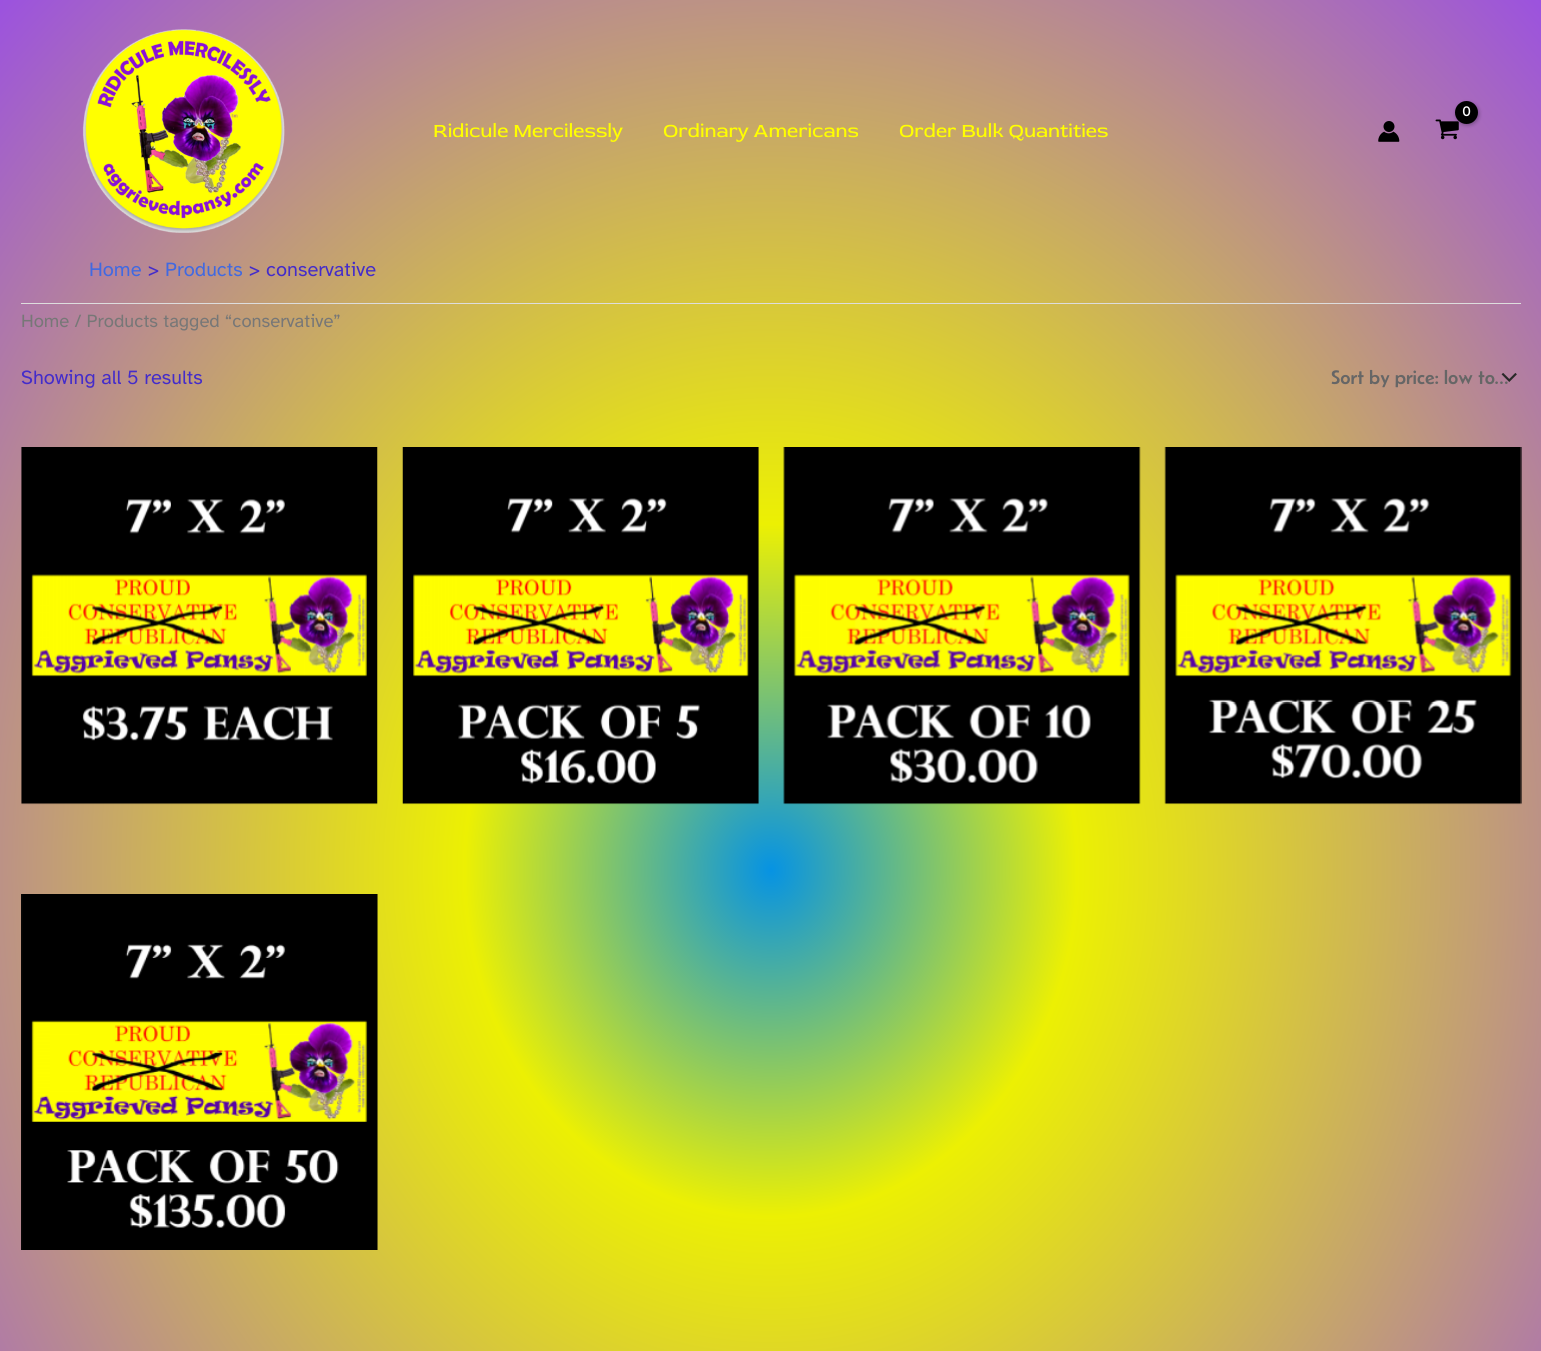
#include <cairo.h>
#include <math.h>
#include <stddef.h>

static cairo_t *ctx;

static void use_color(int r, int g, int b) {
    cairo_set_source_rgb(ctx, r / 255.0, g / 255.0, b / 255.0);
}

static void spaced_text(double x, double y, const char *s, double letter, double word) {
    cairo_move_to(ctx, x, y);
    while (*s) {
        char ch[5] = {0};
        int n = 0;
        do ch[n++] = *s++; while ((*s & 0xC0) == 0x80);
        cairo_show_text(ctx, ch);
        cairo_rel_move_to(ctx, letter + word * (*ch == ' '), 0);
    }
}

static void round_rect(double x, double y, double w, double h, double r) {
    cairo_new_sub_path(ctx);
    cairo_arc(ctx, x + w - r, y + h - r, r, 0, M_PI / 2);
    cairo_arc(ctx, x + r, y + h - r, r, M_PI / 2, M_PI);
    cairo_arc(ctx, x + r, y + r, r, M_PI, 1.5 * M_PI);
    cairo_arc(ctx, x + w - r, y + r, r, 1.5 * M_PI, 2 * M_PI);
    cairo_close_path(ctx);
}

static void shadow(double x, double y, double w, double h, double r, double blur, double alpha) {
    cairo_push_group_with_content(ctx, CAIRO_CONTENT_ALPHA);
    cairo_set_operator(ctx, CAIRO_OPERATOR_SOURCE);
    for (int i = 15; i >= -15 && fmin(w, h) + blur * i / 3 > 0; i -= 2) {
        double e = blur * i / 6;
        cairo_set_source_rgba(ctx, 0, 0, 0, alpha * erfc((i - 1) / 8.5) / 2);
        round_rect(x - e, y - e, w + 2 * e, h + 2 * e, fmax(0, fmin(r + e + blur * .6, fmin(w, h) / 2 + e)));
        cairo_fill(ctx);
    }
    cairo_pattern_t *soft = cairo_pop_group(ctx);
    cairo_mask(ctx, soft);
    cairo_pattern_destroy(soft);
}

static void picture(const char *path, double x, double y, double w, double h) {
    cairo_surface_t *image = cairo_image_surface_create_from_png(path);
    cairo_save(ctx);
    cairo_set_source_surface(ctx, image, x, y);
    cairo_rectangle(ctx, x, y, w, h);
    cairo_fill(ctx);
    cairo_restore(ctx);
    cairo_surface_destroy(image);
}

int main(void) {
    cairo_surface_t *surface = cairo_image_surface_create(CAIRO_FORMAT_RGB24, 1541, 1351);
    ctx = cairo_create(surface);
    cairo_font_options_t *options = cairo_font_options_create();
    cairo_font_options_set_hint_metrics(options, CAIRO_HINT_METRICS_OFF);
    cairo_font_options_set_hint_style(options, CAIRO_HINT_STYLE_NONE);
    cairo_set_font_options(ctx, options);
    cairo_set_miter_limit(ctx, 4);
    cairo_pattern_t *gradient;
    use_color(255, 255, 255);
    cairo_paint(ctx);
    gradient = cairo_pattern_create_radial(0, 0, 0, 0, 0, 1);
    cairo_pattern_set_matrix(gradient, &(cairo_matrix_t){1.0 / 1090, 0, 0, 1.0 / 1229, -1.0 * 771 / 1090, -1.0 * 869 / 1229});
    cairo_pattern_add_color_stop_rgba(gradient, 0, 0.024, 0.576, 0.89, 1);
    cairo_pattern_add_color_stop_rgba(gradient, 0.28, 0.925, 0.941, 0.012, 1);
    cairo_pattern_add_color_stop_rgba(gradient, 1, 0.608, 0.318, 0.878, 1);
    cairo_set_source(ctx, gradient);
    cairo_pattern_destroy(gradient);
    cairo_rectangle(ctx, 0, 0, 1541, 1351);
    cairo_fill(ctx);
    picture("img1.png", 82, 29, 203, 204);
    picture("img2.png", 1435, 119, 24, 21);
    use_color(0, 0, 0);
    shadow(1456, 103, 23, 22, 11, 2, 0.3);
    use_color(0, 0, 0);
    cairo_arc(ctx, 1466.5, 112.5, 11.5, 0, 2 * M_PI);
    cairo_fill(ctx);
    cairo_select_font_face(ctx, "Work Sans", CAIRO_FONT_SLANT_NORMAL, CAIRO_FONT_WEIGHT_BOLD);
    cairo_set_font_size(ctx, 14);
    use_color(255, 255, 255);
    spaced_text(1462, 116, "0", -1, 0);
    picture("img3.png", 1378, 121, 22, 21);
    cairo_select_font_face(ctx, "Red Rose", CAIRO_FONT_SLANT_NORMAL, CAIRO_FONT_WEIGHT_NORMAL);
    cairo_set_font_size(ctx, 20);
    use_color(255, 255, 0);
    cairo_move_to(ctx, 433, 137);
    cairo_show_text(ctx, "Ridicule Mercilessly");
    cairo_move_to(ctx, 663, 137);
    cairo_show_text(ctx, "Ordinary Americans");
    cairo_move_to(ctx, 899, 137);
    cairo_show_text(ctx, "Order Bulk Quantities");
    use_color(221, 221, 221);
    cairo_rectangle(ctx, 21, 303, 1500, 1);
    cairo_fill(ctx);
    cairo_select_font_face(ctx, "Atkinson Hyperlegible", CAIRO_FONT_SLANT_NORMAL, CAIRO_FONT_WEIGHT_NORMAL);
    use_color(65, 105, 225);
    cairo_move_to(ctx, 89, 276);
    cairo_show_text(ctx, "Home");
    use_color(68, 44, 202);
    cairo_move_to(ctx, 148, 276);
    cairo_show_text(ctx, ">");
    use_color(65, 105, 225);
    cairo_move_to(ctx, 165, 276);
    cairo_show_text(ctx, "Products");
    use_color(68, 44, 202);
    cairo_move_to(ctx, 249, 276);
    cairo_show_text(ctx, ">");
    cairo_move_to(ctx, 266, 276);
    cairo_show_text(ctx, "conservative");
    cairo_set_font_size(ctx, 18.4);
    use_color(119, 119, 119);
    cairo_move_to(ctx, 21, 327);
    cairo_show_text(ctx, "Home / Products tagged “conservative”");
    cairo_set_font_size(ctx, 20);
    use_color(68, 44, 202);
    cairo_move_to(ctx, 21, 384);
    cairo_show_text(ctx, "Showing all 5 results");
    picture("img4.png", 1501, 373, 16, 9);
    cairo_select_font_face(ctx, "Belanosima", CAIRO_FONT_SLANT_NORMAL, CAIRO_FONT_WEIGHT_NORMAL);
    use_color(102, 102, 102);
    cairo_move_to(ctx, 1331, 384);
    cairo_show_text(ctx, "Sort by price: low to…");
    picture("img5.png", 21, 447, 357, 358);
    picture("img6.png", 402, 447, 357, 358);
    picture("img7.png", 783, 447, 358, 358);
    picture("img8.png", 1164, 447, 358, 358);
    picture("img9.png", 21, 894, 357, 356);
    cairo_surface_write_to_png(surface, "result.png");
    cairo_font_options_destroy(options);
    cairo_destroy(ctx);
    cairo_surface_destroy(surface);
    return 0;
}
